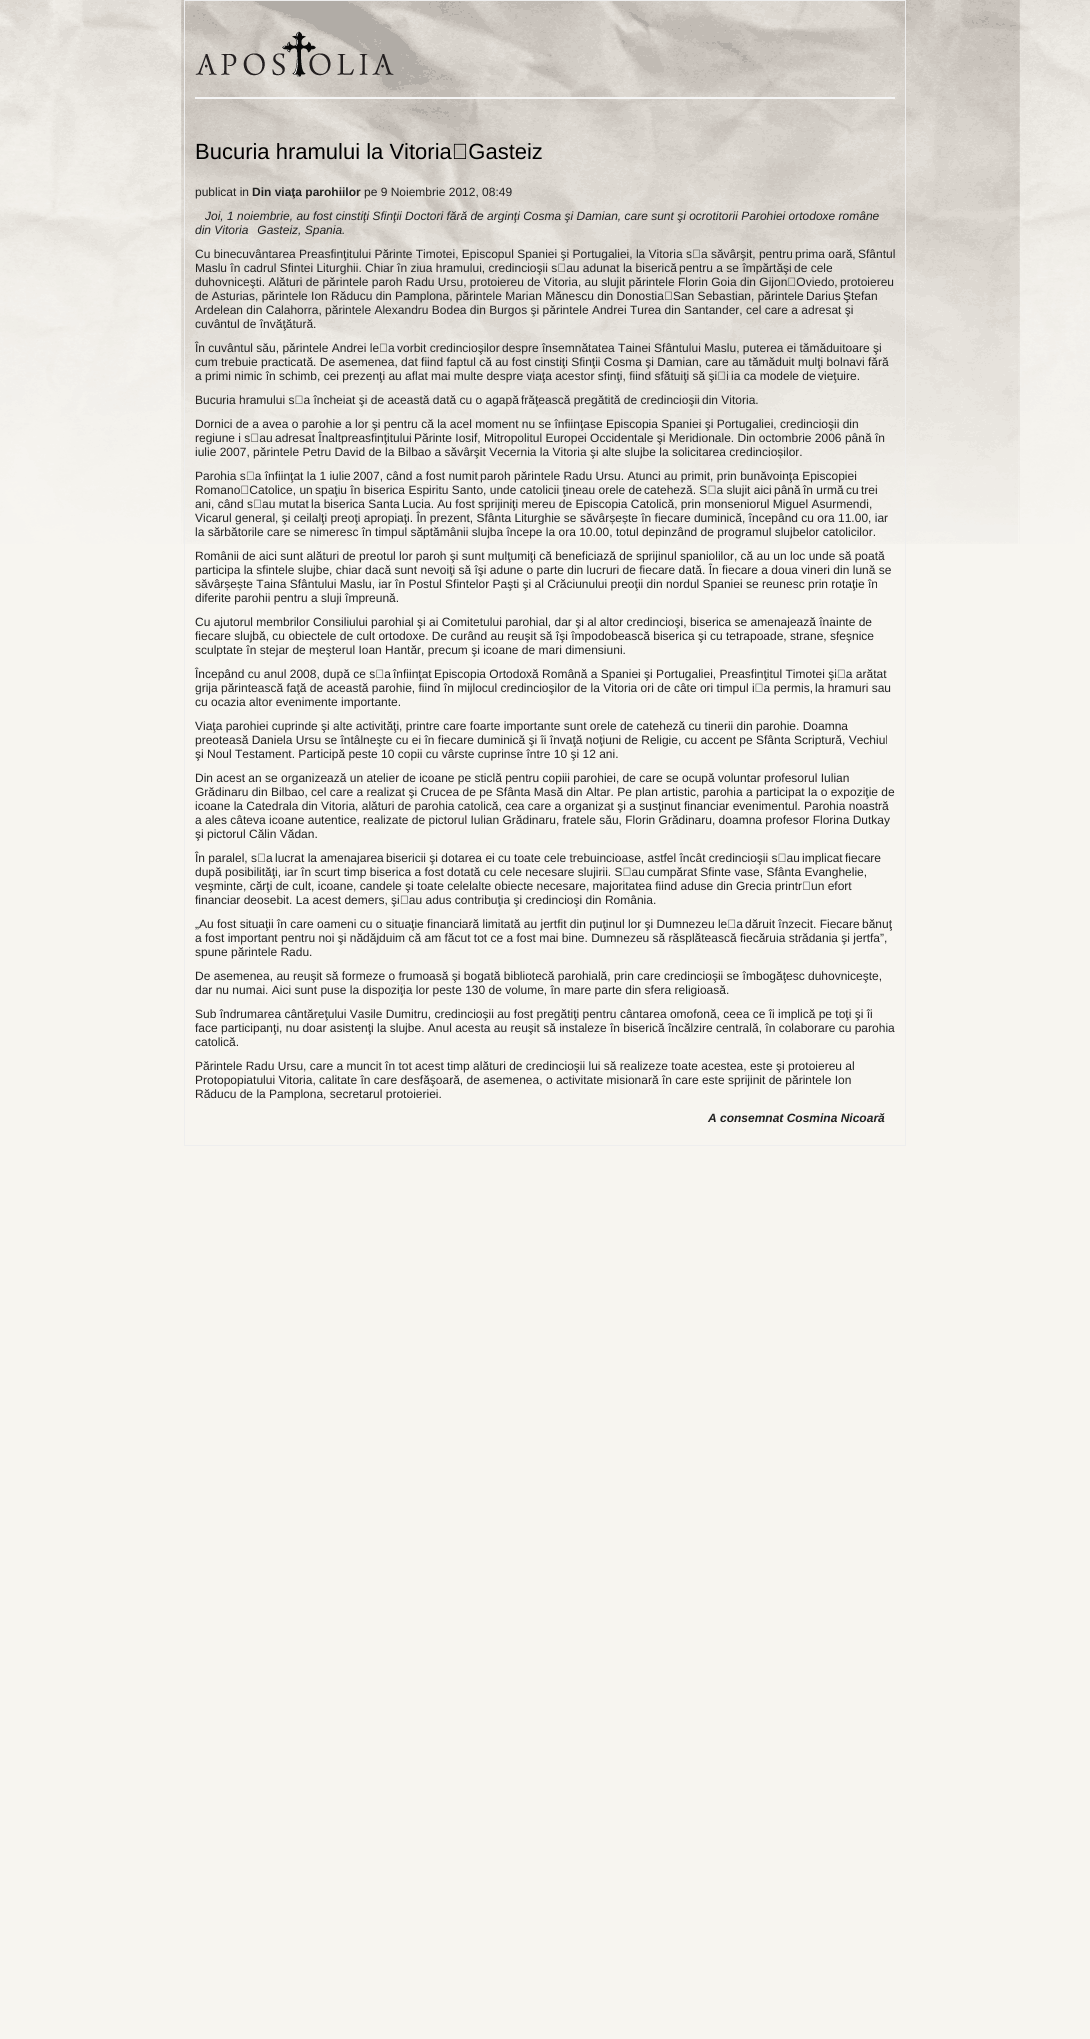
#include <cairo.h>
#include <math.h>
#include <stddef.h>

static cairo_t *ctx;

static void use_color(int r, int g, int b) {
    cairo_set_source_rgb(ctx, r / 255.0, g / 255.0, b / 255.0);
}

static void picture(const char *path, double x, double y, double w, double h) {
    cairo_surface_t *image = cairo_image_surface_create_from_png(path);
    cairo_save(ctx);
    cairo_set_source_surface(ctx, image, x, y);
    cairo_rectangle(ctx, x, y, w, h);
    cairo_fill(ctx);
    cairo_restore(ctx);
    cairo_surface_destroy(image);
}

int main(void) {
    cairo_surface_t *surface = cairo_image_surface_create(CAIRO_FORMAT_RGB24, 1090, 2039);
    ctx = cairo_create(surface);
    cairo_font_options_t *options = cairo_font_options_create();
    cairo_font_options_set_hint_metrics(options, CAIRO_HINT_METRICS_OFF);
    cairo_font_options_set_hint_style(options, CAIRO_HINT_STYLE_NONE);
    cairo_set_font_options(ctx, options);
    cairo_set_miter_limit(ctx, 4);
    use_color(247, 245, 240);
    cairo_paint(ctx);
    picture("img1.png", 0, 0, 1090, 544);
    cairo_rectangle(ctx, 184.5, 0.5, 721, 1145);
    use_color(238, 238, 238);
    cairo_set_line_width(ctx, 1);
    cairo_stroke(ctx);
    use_color(245, 245, 245);
    cairo_rectangle(ctx, 195, 97, 700, 2);
    cairo_fill(ctx);
    picture("img2.png", 195, 31, 199, 46);
    cairo_select_font_face(ctx, "Liberation Sans", CAIRO_FONT_SLANT_NORMAL, CAIRO_FONT_WEIGHT_NORMAL);
    cairo_set_font_size(ctx, 22);
    use_color(0, 0, 0);
    cairo_move_to(ctx, 195, 159);
    cairo_show_text(ctx, "Bucuria hramului la Vitoria‑Gasteiz");
    cairo_set_font_size(ctx, 12);
    use_color(33, 33, 33);
    cairo_move_to(ctx, 195, 196);
    cairo_show_text(ctx, "publicat in");
    cairo_select_font_face(ctx, "Liberation Sans", CAIRO_FONT_SLANT_NORMAL, CAIRO_FONT_WEIGHT_BOLD);
    cairo_move_to(ctx, 252, 196);
    cairo_show_text(ctx, "Din viaţa parohiilor");
    cairo_select_font_face(ctx, "Liberation Sans", CAIRO_FONT_SLANT_NORMAL, CAIRO_FONT_WEIGHT_NORMAL);
    cairo_move_to(ctx, 364, 196);
    cairo_show_text(ctx, "pe 9 Noiembrie 2012, 08:49");
    cairo_select_font_face(ctx, "Liberation Sans", CAIRO_FONT_SLANT_ITALIC, CAIRO_FONT_WEIGHT_NORMAL);
    cairo_move_to(ctx, 205, 220);
    cairo_show_text(ctx, "Joi, 1 noiembrie, au fost cinstiţi Sfinţii Doctori fără de arginţi Cosma şi Damian, care sunt şi ocrotitorii Parohiei ortodoxe române");
    cairo_move_to(ctx, 195, 234);
    cairo_show_text(ctx, "din Vitoria‑Gasteiz, Spania.");
    cairo_select_font_face(ctx, "Liberation Sans", CAIRO_FONT_SLANT_NORMAL, CAIRO_FONT_WEIGHT_NORMAL);
    cairo_move_to(ctx, 195, 258);
    cairo_show_text(ctx, "Cu binecuvântarea Preasfinţitului Părinte Timotei, Episcopul Spaniei şi Portugaliei, la Vitoria s‑a săvârşit, pentru");
    cairo_move_to(ctx, 795, 258);
    cairo_show_text(ctx, "prima oară,");
    cairo_move_to(ctx, 858, 258);
    cairo_show_text(ctx, "Sfântul");
    cairo_move_to(ctx, 195, 272);
    cairo_show_text(ctx, "Maslu în cadrul Sfintei Liturghii. Chiar în ziua hramului, credincioşii s‑au adunat la biserică");
    cairo_move_to(ctx, 679, 272);
    cairo_show_text(ctx, "pentru a se împărtăşi");
    cairo_move_to(ctx, 794, 272);
    cairo_show_text(ctx, "de cele");
    cairo_move_to(ctx, 195, 286);
    cairo_show_text(ctx, "duhovniceşti. Alături de părintele paroh Radu Ursu, protoiereu de Vitoria, au slujit părintele Florin Goia din Gijon‑Oviedo,");
    cairo_move_to(ctx, 840, 286);
    cairo_show_text(ctx, "protoiereu");
    cairo_move_to(ctx, 195, 300);
    cairo_show_text(ctx, "de Asturias, părintele Ion Răducu din Pamplona, părintele Marian Mănescu din Donostia‑San Sebastian, părintele");
    cairo_move_to(ctx, 806, 300);
    cairo_show_text(ctx, "Darius");
    cairo_move_to(ctx, 843, 300);
    cairo_show_text(ctx, "Ştefan");
    cairo_move_to(ctx, 195, 314);
    cairo_show_text(ctx, "Ardelean din Calahorra, părintele Alexandru Bodea din Burgos şi părintele Andrei Turea din Santander, cel care a adresat şi");
    cairo_move_to(ctx, 195, 328);
    cairo_show_text(ctx, "cuvântul de învăţătură.");
    cairo_move_to(ctx, 195, 352);
    cairo_show_text(ctx, "În cuvântul său, părintele Andrei le‑a");
    cairo_move_to(ctx, 397, 352);
    cairo_show_text(ctx, "vorbit credincioşilor");
    cairo_move_to(ctx, 502, 352);
    cairo_show_text(ctx, "despre însemnătatea Tainei Sfântului Maslu, puterea ei tămăduitoare şi");
    cairo_move_to(ctx, 195, 366);
    cairo_show_text(ctx, "cum trebuie practicată. De asemenea, dat fiind faptul că au fost cinstiţi Sfinţii Cosma şi Damian, care au tămăduit mulţi bolnavi fără");
    cairo_move_to(ctx, 195, 380);
    cairo_show_text(ctx, "a primi nimic în schimb, cei prezenţi au aflat mai multe despre viaţa acestor sfinţi, fiind sfătuiţi să şi‑i");
    cairo_move_to(ctx, 731, 380);
    cairo_show_text(ctx, "ia ca modele de");
    cairo_move_to(ctx, 818, 380);
    cairo_show_text(ctx, "vieţuire.");
    cairo_move_to(ctx, 195, 404);
    cairo_show_text(ctx, "Bucuria hramului s‑a încheiat şi de această dată cu o agapă");
    cairo_move_to(ctx, 521, 404);
    cairo_show_text(ctx, "frăţească pregătită de credincioşii");
    cairo_move_to(ctx, 702, 404);
    cairo_show_text(ctx, "din Vitoria.");
    cairo_move_to(ctx, 195, 428);
    cairo_show_text(ctx, "Dornici de a avea o parohie a lor şi pentru că la acel moment nu se înfiinţase Episcopia Spaniei şi Portugaliei, credincioşii din");
    cairo_move_to(ctx, 195, 442);
    cairo_show_text(ctx, "regiune i s‑au");
    cairo_move_to(ctx, 275, 442);
    cairo_show_text(ctx, "adresat Înaltpreasfinţitului");
    cairo_move_to(ctx, 414, 442);
    cairo_show_text(ctx, "Părinte Iosif, Mitropolitul Europei Occidentale şi Meridionale. Din octombrie 2006 până în");
    cairo_move_to(ctx, 195, 456);
    cairo_show_text(ctx, "iulie 2007, părintele Petru David de la Bilbao a săvârşit Vecernia la Vitoria şi alte slujbe la solicitarea credincioșilor.");
    cairo_move_to(ctx, 195, 480);
    cairo_show_text(ctx, "Parohia s‑a înfiinţat la 1 iulie");
    cairo_move_to(ctx, 353, 480);
    cairo_show_text(ctx, "2007, când a fost numit");
    cairo_move_to(ctx, 480, 480);
    cairo_show_text(ctx, "paroh părintele Radu Ursu. Atunci au primit, prin bunăvoinţa Episcopiei");
    cairo_move_to(ctx, 195, 494);
    cairo_show_text(ctx, "Romano‑Catolice, un");
    cairo_move_to(ctx, 315, 494);
    cairo_show_text(ctx, "spaţiu în biserica Espiritu Santo, unde catolicii ţineau orele de");
    cairo_move_to(ctx, 644, 494);
    cairo_show_text(ctx, "cateheză. S‑a slujit aici");
    cairo_move_to(ctx, 774, 494);
    cairo_show_text(ctx, "până");
    cairo_move_to(ctx, 803, 494);
    cairo_show_text(ctx, "în urmă");
    cairo_move_to(ctx, 846, 494);
    cairo_show_text(ctx, "cu");
    cairo_move_to(ctx, 861, 494);
    cairo_show_text(ctx, "trei");
    cairo_move_to(ctx, 195, 508);
    cairo_show_text(ctx, "ani, când s‑au mutat");
    cairo_move_to(ctx, 311, 508);
    cairo_show_text(ctx, "la biserica Santa");
    cairo_move_to(ctx, 402, 508);
    cairo_show_text(ctx, "Lucia. Au fost sprijiniţi mereu de Episcopia Catolică, prin monseniorul Miguel Asurmendi,");
    cairo_move_to(ctx, 195, 522);
    cairo_show_text(ctx, "Vicarul general, şi ceilalţi preoţi apropiaţi. În prezent, Sfânta Liturghie se săvârșește în fiecare duminică, începând cu ora 11.00, iar");
    cairo_move_to(ctx, 195, 536);
    cairo_show_text(ctx, "la sărbătorile care se nimeresc în timpul săptămânii slujba începe la ora 10.00, totul depinzând de programul slujbelor catolicilor.");
    cairo_move_to(ctx, 195, 560);
    cairo_show_text(ctx, "Românii de aici sunt alături de preotul lor paroh şi sunt mulţumiţi că beneficiază de sprijinul spaniolilor, că au un loc unde să poată");
    cairo_move_to(ctx, 195, 574);
    cairo_show_text(ctx, "participa la sfintele slujbe, chiar dacă sunt nevoiţi să îşi adune o parte din lucruri de fiecare dată. În fiecare a doua vineri din lună se");
    cairo_move_to(ctx, 195, 588);
    cairo_show_text(ctx, "săvârșește Taina Sfântului Maslu, iar în Postul Sfintelor Paşti şi al Crăciunului preoţii din nordul Spaniei se reunesc prin rotaţie în");
    cairo_move_to(ctx, 195, 602);
    cairo_show_text(ctx, "diferite parohii pentru a sluji împreună.");
    cairo_move_to(ctx, 195, 626);
    cairo_show_text(ctx, "Cu ajutorul membrilor Consiliului parohial şi ai Comitetului parohial, dar şi al altor credincioşi, biserica se amenajează înainte de");
    cairo_move_to(ctx, 195, 640);
    cairo_show_text(ctx, "fiecare slujbă, cu obiectele de cult ortodoxe. De curând au reuşit să îşi împodobească biserica şi cu tetrapoade, strane, sfeşnice");
    cairo_move_to(ctx, 195, 654);
    cairo_show_text(ctx, "sculptate în stejar de meşterul Ioan Hantăr, precum şi icoane de mari dimensiuni.");
    cairo_move_to(ctx, 195, 678);
    cairo_show_text(ctx, "Începând cu anul 2008, după ce s‑a");
    cairo_move_to(ctx, 393, 678);
    cairo_show_text(ctx, "înfiinţat");
    cairo_move_to(ctx, 434, 678);
    cairo_show_text(ctx, "Episcopia Ortodoxă Română a Spaniei şi Portugaliei, Preasfinţitul Timotei şi‑a arătat");
    cairo_move_to(ctx, 195, 692);
    cairo_show_text(ctx, "grija părintească faţă de această parohie, fiind în mijlocul credincioşilor de la Vitoria ori de câte ori timpul i‑a permis,");
    cairo_move_to(ctx, 815, 692);
    cairo_show_text(ctx, "la hramuri sau");
    cairo_move_to(ctx, 195, 706);
    cairo_show_text(ctx, "cu ocazia altor evenimente importante.");
    cairo_move_to(ctx, 195, 730);
    cairo_show_text(ctx, "Viaţa parohiei cuprinde şi alte activităţi, printre care foarte importante sunt orele de cateheză cu tinerii din parohie. Doamna");
    cairo_move_to(ctx, 195, 744);
    cairo_show_text(ctx, "preoteasă Daniela Ursu se întâlneşte cu ei în fiecare duminică şi îi învaţă noţiuni de Religie, cu accent pe Sfânta Scriptură, Vechiul");
    cairo_move_to(ctx, 195, 758);
    cairo_show_text(ctx, "şi Noul Testament. Participă peste 10 copii cu vârste cuprinse între 10 şi 12 ani.");
    cairo_move_to(ctx, 195, 782);
    cairo_show_text(ctx, "Din acest an se organizează un atelier de icoane pe sticlă pentru copiii parohiei, de care se ocupă voluntar profesorul Iulian");
    cairo_move_to(ctx, 195, 796);
    cairo_show_text(ctx, "Grădinaru din Bilbao, cel care a realizat şi Crucea de pe Sfânta Masă din Altar. Pe plan artistic, parohia a participat la o expoziţie de");
    cairo_move_to(ctx, 195, 810);
    cairo_show_text(ctx, "icoane la Catedrala din Vitoria, alături de parohia catolică, cea care a organizat şi a susţinut financiar evenimentul. Parohia noastră");
    cairo_move_to(ctx, 195, 824);
    cairo_show_text(ctx, "a ales câteva icoane autentice, realizate de pictorul Iulian Grădinaru, fratele său, Florin Grădinaru, doamna profesor Florina Dutkay");
    cairo_move_to(ctx, 195, 838);
    cairo_show_text(ctx, "şi pictorul Călin Vădan.");
    cairo_move_to(ctx, 195, 862);
    cairo_show_text(ctx, "În paralel, s‑a");
    cairo_move_to(ctx, 275, 862);
    cairo_show_text(ctx, "lucrat la amenajarea");
    cairo_move_to(ctx, 386, 862);
    cairo_show_text(ctx, "bisericii şi dotarea ei cu toate cele trebuincioase, astfel încât credincioşii s‑au");
    cairo_move_to(ctx, 802, 862);
    cairo_show_text(ctx, "implicat");
    cairo_move_to(ctx, 845, 862);
    cairo_show_text(ctx, "fiecare");
    cairo_move_to(ctx, 195, 876);
    cairo_show_text(ctx, "după posibilităţi, iar în scurt timp biserica a fost dotată cu cele necesare slujirii. S‑au");
    cairo_move_to(ctx, 647, 876);
    cairo_show_text(ctx, "cumpărat Sfinte vase, Sfânta Evanghelie,");
    cairo_move_to(ctx, 195, 890);
    cairo_show_text(ctx, "veşminte, cărţi de cult, icoane, candele şi toate celelalte obiecte necesare, majoritatea fiind aduse din Grecia printr‑un efort");
    cairo_move_to(ctx, 195, 904);
    cairo_show_text(ctx, "financiar deosebit. La acest demers, şi‑au adus contribuţia şi credincioşi din România.");
    cairo_move_to(ctx, 195, 928);
    cairo_show_text(ctx, "„Au fost situaţii în care oameni cu o situaţie financiară limitată au jertfit din puţinul lor şi Dumnezeu le‑a");
    cairo_move_to(ctx, 745, 928);
    cairo_show_text(ctx, "dăruit înzecit. Fiecare");
    cairo_move_to(ctx, 862, 928);
    cairo_show_text(ctx, "bănuţ");
    cairo_move_to(ctx, 195, 942);
    cairo_show_text(ctx, "a fost important pentru noi şi nădăjduim că am făcut tot ce a fost mai bine. Dumnezeu să răsplătească fiecăruia strădania şi jertfa”,");
    cairo_move_to(ctx, 195, 956);
    cairo_show_text(ctx, "spune părintele Radu.");
    cairo_move_to(ctx, 195, 980);
    cairo_show_text(ctx, "De asemenea, au reuşit să formeze o frumoasă şi bogată bibliotecă parohială, prin care credincioşii se îmbogăţesc duhovniceşte,");
    cairo_move_to(ctx, 195, 994);
    cairo_show_text(ctx, "dar nu numai. Aici sunt puse la dispoziţia lor peste 130 de volume, în mare parte din sfera religioasă.");
    cairo_move_to(ctx, 195, 1018);
    cairo_show_text(ctx, "Sub îndrumarea cântăreţului Vasile Dumitru, credincioşii au fost pregătiţi pentru cântarea omofonă, ceea ce îi implică pe toţi şi îi");
    cairo_move_to(ctx, 195, 1032);
    cairo_show_text(ctx, "face participanţi, nu doar asistenţi la slujbe. Anul acesta au reuşit să instaleze în biserică încălzire centrală, în colaborare cu parohia");
    cairo_move_to(ctx, 195, 1046);
    cairo_show_text(ctx, "catolică.");
    cairo_move_to(ctx, 195, 1070);
    cairo_show_text(ctx, "Părintele Radu Ursu, care a muncit în tot acest timp alături de credincioşii lui să realizeze toate acestea, este şi protoiereu al");
    cairo_move_to(ctx, 195, 1084);
    cairo_show_text(ctx, "Protopopiatului Vitoria, calitate în care desfăşoară, de asemenea, o activitate misionară în care este sprijinit de părintele Ion");
    cairo_move_to(ctx, 195, 1098);
    cairo_show_text(ctx, "Răducu de la Pamplona, secretarul protoieriei.");
    cairo_select_font_face(ctx, "Liberation Sans", CAIRO_FONT_SLANT_ITALIC, CAIRO_FONT_WEIGHT_BOLD);
    cairo_move_to(ctx, 708, 1122);
    cairo_show_text(ctx, "A consemnat Cosmina Nicoară");
    cairo_surface_write_to_png(surface, "result.png");
    cairo_font_options_destroy(options);
    cairo_destroy(ctx);
    cairo_surface_destroy(surface);
    return 0;
}
